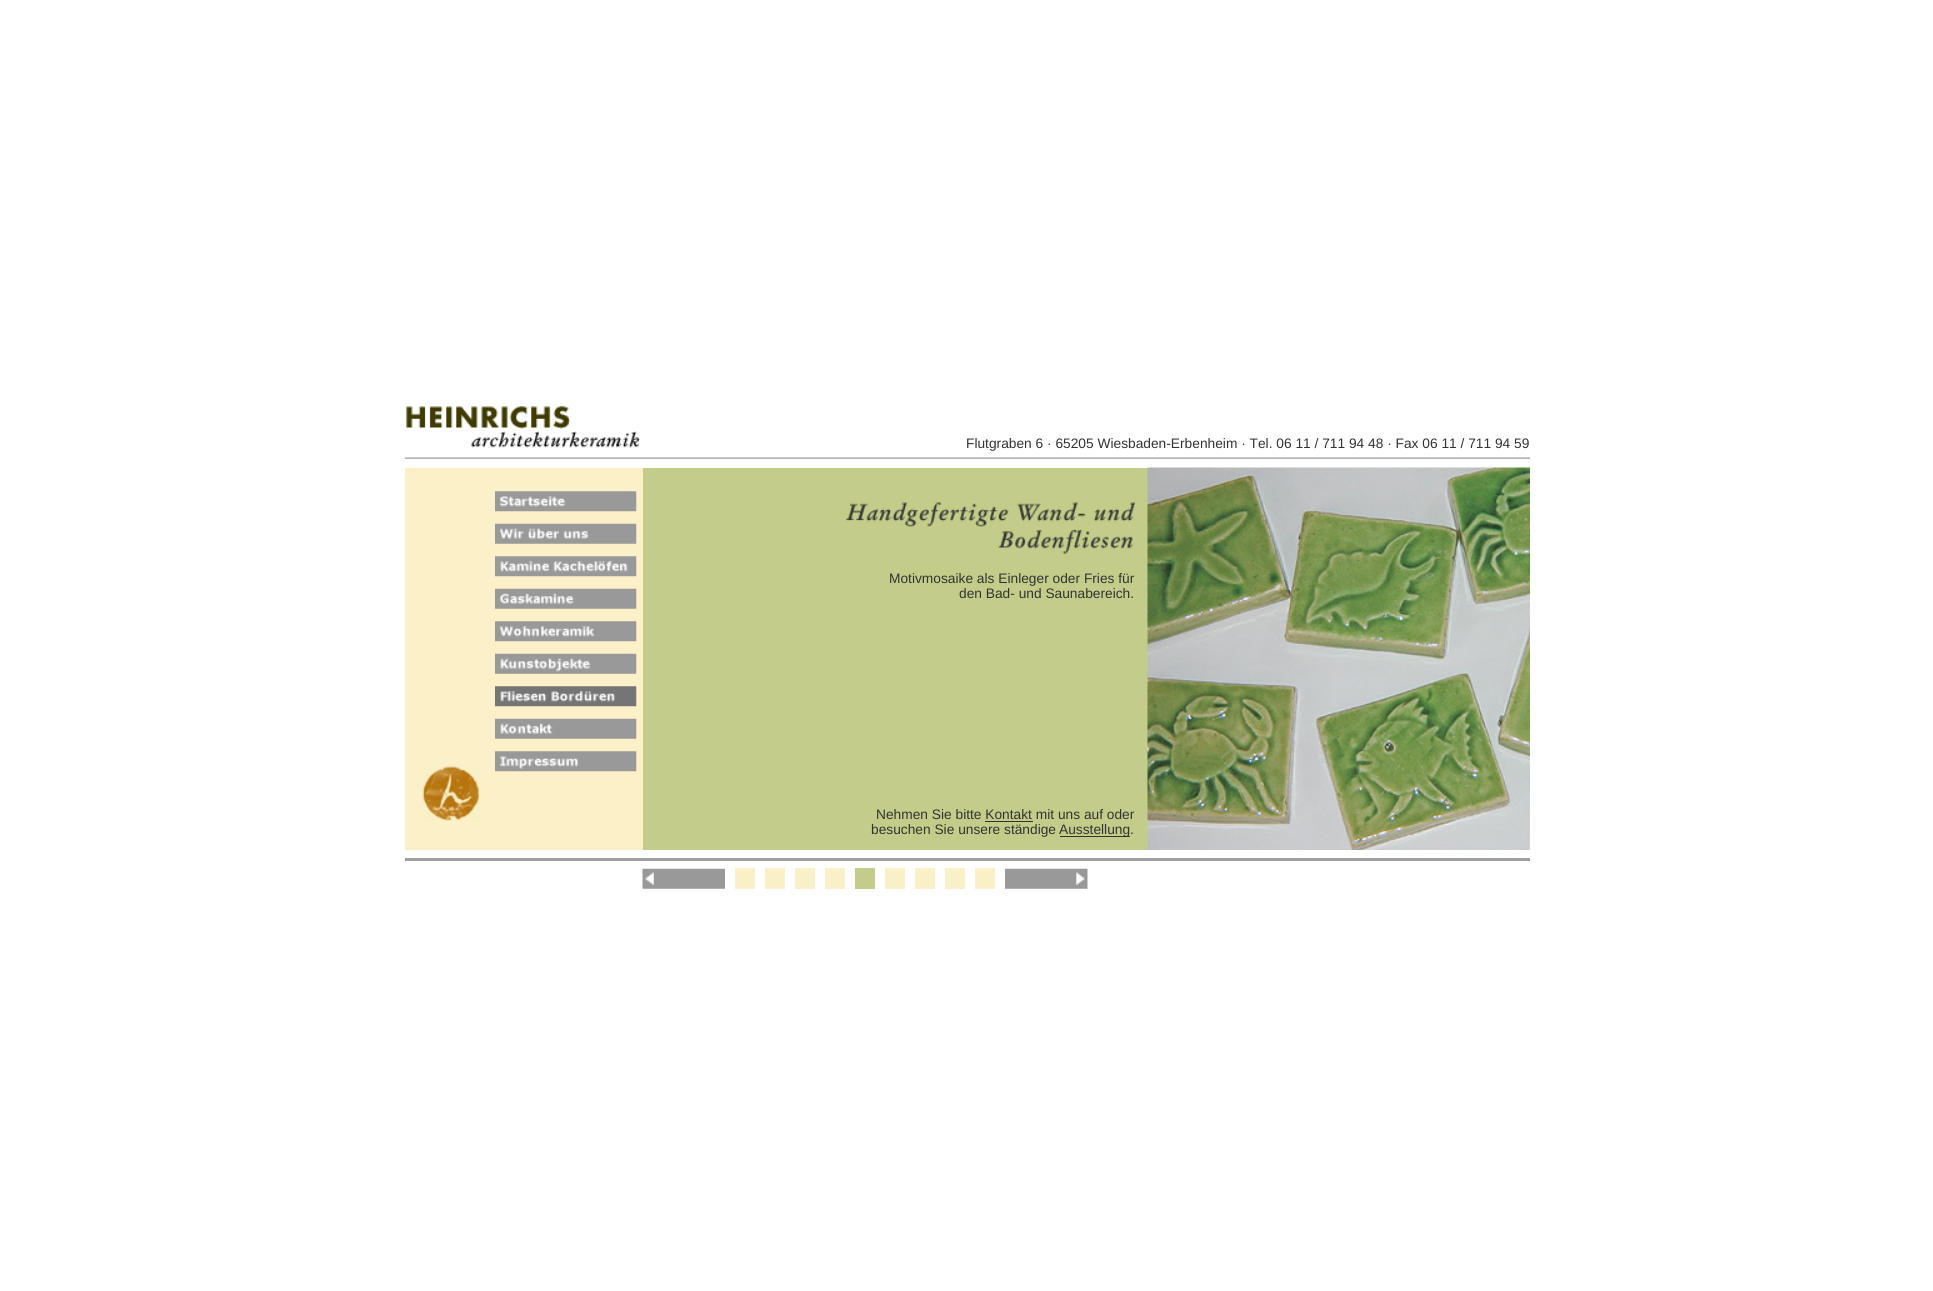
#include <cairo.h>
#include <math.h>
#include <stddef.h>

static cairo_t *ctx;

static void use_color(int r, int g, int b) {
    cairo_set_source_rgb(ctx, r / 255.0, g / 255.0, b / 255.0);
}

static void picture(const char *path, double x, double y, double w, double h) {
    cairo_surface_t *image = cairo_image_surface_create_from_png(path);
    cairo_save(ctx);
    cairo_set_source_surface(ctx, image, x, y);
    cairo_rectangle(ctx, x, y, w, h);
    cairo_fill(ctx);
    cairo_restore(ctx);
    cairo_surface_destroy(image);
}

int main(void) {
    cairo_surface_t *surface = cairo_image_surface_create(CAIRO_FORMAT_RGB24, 1933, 1291);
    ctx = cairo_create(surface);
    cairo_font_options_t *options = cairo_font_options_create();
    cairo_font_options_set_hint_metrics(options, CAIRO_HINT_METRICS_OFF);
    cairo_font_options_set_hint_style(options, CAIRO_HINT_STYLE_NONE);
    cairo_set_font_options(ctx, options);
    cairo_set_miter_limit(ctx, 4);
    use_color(255, 255, 255);
    cairo_paint(ctx);
    picture("img1.png", 406, 406, 235, 42);
    cairo_select_font_face(ctx, "Liberation Sans", CAIRO_FONT_SLANT_NORMAL, CAIRO_FONT_WEIGHT_NORMAL);
    cairo_set_font_size(ctx, 13.75);
    use_color(51, 51, 51);
    cairo_move_to(ctx, 966, 448);
    cairo_show_text(ctx, "Flutgraben 6 · 65205 Wiesbaden-Erbenheim · Tel. 06 11 / 711 94 48 · Fax 06 11 / 711 94 59");
    picture("img2.png", 405, 457, 1125, 2);
    use_color(251, 240, 200);
    cairo_rectangle(ctx, 405, 468, 238, 382);
    cairo_fill(ctx);
    picture("img3.png", 495, 491, 142, 21);
    picture("img4.png", 495, 523, 142, 21);
    picture("img5.png", 495, 556, 142, 21);
    picture("img6.png", 495, 588, 142, 21);
    picture("img7.png", 495, 621, 142, 21);
    picture("img8.png", 495, 653, 142, 21);
    picture("img9.png", 495, 686, 142, 21);
    picture("img10.png", 495, 718, 142, 21);
    picture("img11.png", 495, 751, 142, 21);
    picture("img12.png", 422, 766, 58, 55);
    use_color(195, 205, 137);
    cairo_rectangle(ctx, 643, 468, 505, 382);
    cairo_fill(ctx);
    picture("img13.png", 846, 502, 289, 52);
    use_color(51, 51, 51);
    cairo_move_to(ctx, 889, 583);
    cairo_show_text(ctx, "Motivmosaike als Einleger oder Fries für");
    cairo_move_to(ctx, 959, 598);
    cairo_show_text(ctx, "den Bad- und Saunabereich.");
    cairo_move_to(ctx, 876, 819);
    cairo_show_text(ctx, "Nehmen Sie bitte Kontakt mit uns auf oder");
    cairo_rectangle(ctx, 985, 821, 48, 1);
    cairo_fill(ctx);
    cairo_move_to(ctx, 871, 834);
    cairo_show_text(ctx, "besuchen Sie unsere ständige");
    cairo_rectangle(ctx, 1060, 836, 70, 1);
    cairo_fill(ctx);
    cairo_move_to(ctx, 1059, 834);
    cairo_show_text(ctx, "Ausstellung.");
    picture("img14.png", 1147, 467, 383, 383);
    use_color(159, 159, 159);
    cairo_rectangle(ctx, 405, 858, 1125, 3);
    cairo_fill(ctx);
    picture("img15.png", 642, 868, 83, 21);
    use_color(250, 240, 200);
    cairo_rectangle(ctx, 735, 868, 20, 21);
    cairo_fill(ctx);
    cairo_rectangle(ctx, 765, 868, 20, 21);
    cairo_fill(ctx);
    cairo_rectangle(ctx, 795, 868, 20, 21);
    cairo_fill(ctx);
    cairo_rectangle(ctx, 825, 868, 20, 21);
    cairo_fill(ctx);
    use_color(195, 205, 137);
    cairo_rectangle(ctx, 855, 868, 20, 21);
    cairo_fill(ctx);
    use_color(250, 240, 200);
    cairo_rectangle(ctx, 885, 868, 20, 21);
    cairo_fill(ctx);
    cairo_rectangle(ctx, 915, 868, 20, 21);
    cairo_fill(ctx);
    cairo_rectangle(ctx, 945, 868, 20, 21);
    cairo_fill(ctx);
    cairo_rectangle(ctx, 975, 868, 20, 21);
    cairo_fill(ctx);
    picture("img16.png", 1005, 868, 83, 21);
    cairo_surface_write_to_png(surface, "result.png");
    cairo_font_options_destroy(options);
    cairo_destroy(ctx);
    cairo_surface_destroy(surface);
    return 0;
}
